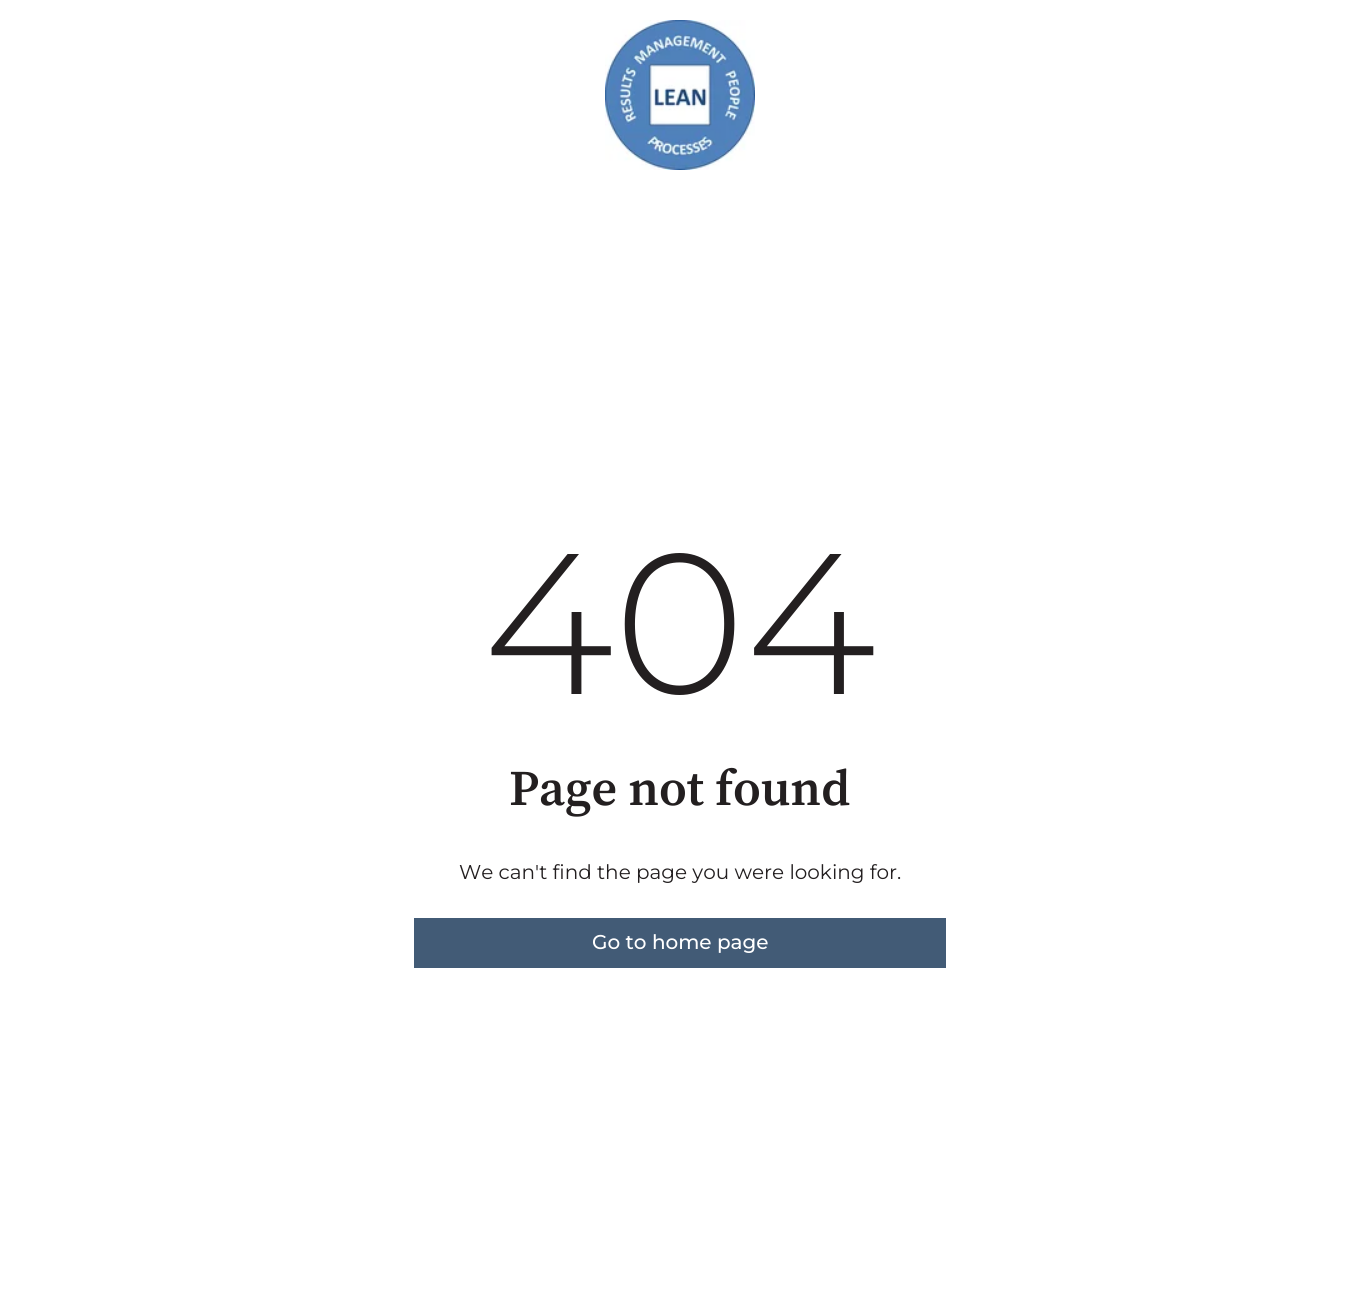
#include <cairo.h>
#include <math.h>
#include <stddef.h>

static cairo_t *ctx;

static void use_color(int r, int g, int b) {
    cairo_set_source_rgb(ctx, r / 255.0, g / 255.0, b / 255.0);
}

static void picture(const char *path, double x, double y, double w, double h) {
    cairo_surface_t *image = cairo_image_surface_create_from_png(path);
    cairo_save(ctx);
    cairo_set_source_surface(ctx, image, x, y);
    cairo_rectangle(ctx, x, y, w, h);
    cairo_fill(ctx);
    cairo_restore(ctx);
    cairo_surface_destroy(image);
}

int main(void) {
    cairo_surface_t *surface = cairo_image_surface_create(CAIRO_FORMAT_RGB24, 1359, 1299);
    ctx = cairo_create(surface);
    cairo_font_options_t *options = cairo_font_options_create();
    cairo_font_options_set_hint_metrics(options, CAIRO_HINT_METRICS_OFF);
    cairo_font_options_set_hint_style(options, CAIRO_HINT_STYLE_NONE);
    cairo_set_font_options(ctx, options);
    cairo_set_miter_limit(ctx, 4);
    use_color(255, 255, 255);
    cairo_paint(ctx);
    picture("img1.png", 605, 20, 150, 150);
    cairo_select_font_face(ctx, "Montserrat Light", CAIRO_FONT_SLANT_NORMAL, CAIRO_FONT_WEIGHT_NORMAL);
    cairo_set_font_size(ctx, 200);
    use_color(35, 31, 32);
    cairo_move_to(ctx, 483, 694);
    cairo_show_text(ctx, "404");
    cairo_select_font_face(ctx, "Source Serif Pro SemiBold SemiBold", CAIRO_FONT_SLANT_NORMAL, CAIRO_FONT_WEIGHT_NORMAL);
    cairo_set_font_size(ctx, 50);
    cairo_move_to(ctx, 509, 805);
    cairo_show_text(ctx, "Page not found");
    cairo_select_font_face(ctx, "Montserrat", CAIRO_FONT_SLANT_NORMAL, CAIRO_FONT_WEIGHT_NORMAL);
    cairo_set_font_size(ctx, 20);
    cairo_move_to(ctx, 459, 879);
    cairo_show_text(ctx, "We can't find the page you were looking for.");
    use_color(66, 91, 118);
    cairo_rectangle(ctx, 414, 918, 532, 50);
    cairo_fill(ctx);
    cairo_select_font_face(ctx, "Montserrat Medium", CAIRO_FONT_SLANT_NORMAL, CAIRO_FONT_WEIGHT_NORMAL);
    use_color(255, 255, 255);
    cairo_move_to(ctx, 592, 949);
    cairo_show_text(ctx, "Go to home page");
    cairo_surface_write_to_png(surface, "result.png");
    cairo_font_options_destroy(options);
    cairo_destroy(ctx);
    cairo_surface_destroy(surface);
    return 0;
}
